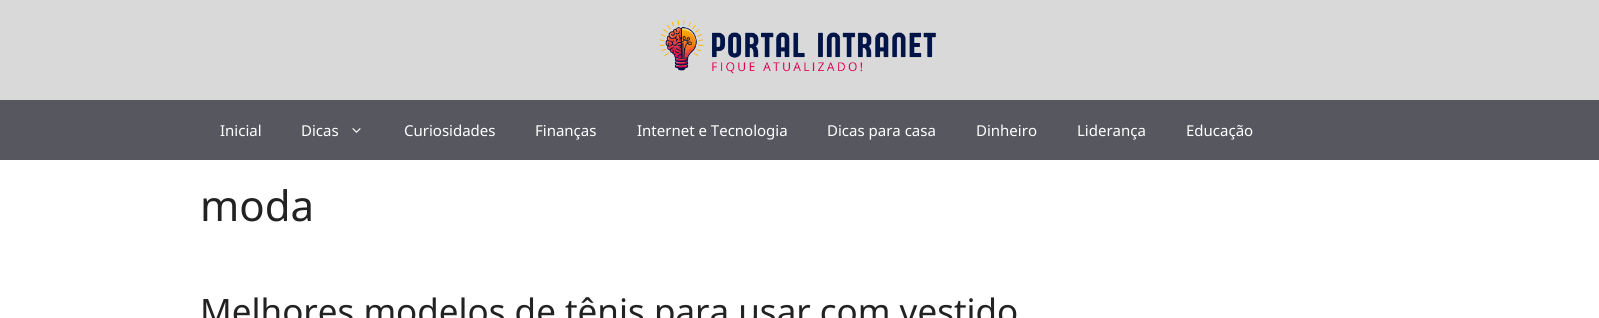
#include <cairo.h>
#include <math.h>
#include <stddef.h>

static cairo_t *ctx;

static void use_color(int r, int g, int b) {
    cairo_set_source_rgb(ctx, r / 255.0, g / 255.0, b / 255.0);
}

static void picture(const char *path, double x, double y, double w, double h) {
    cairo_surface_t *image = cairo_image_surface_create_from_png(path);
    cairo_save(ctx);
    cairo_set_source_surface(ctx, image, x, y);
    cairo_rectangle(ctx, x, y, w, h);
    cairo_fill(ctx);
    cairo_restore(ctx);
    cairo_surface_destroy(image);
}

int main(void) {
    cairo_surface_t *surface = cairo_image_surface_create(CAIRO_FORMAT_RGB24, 1599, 318);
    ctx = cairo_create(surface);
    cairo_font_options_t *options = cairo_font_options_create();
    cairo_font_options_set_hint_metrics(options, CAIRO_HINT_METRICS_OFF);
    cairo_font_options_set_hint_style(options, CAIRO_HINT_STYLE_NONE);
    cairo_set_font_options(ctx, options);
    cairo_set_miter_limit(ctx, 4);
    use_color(255, 255, 255);
    cairo_paint(ctx);
    use_color(217, 217, 217);
    cairo_rectangle(ctx, 0, 0, 1599, 100);
    cairo_fill(ctx);
    picture("img1.png", 659, 20, 278, 54);
    use_color(87, 87, 96);
    cairo_rectangle(ctx, 0, 100, 1599, 60);
    cairo_fill(ctx);
    cairo_select_font_face(ctx, "Noto Sans", CAIRO_FONT_SLANT_NORMAL, CAIRO_FONT_WEIGHT_NORMAL);
    cairo_set_font_size(ctx, 15);
    use_color(255, 255, 255);
    cairo_move_to(ctx, 220, 136);
    cairo_show_text(ctx, "Inicial");
    cairo_move_to(ctx, 301, 136);
    cairo_show_text(ctx, "Dicas");
    picture("img2.png", 352, 128, 9, 5);
    cairo_move_to(ctx, 404, 136);
    cairo_show_text(ctx, "Curiosidades");
    cairo_move_to(ctx, 535, 136);
    cairo_show_text(ctx, "Finanças");
    cairo_move_to(ctx, 637, 136);
    cairo_show_text(ctx, "Internet e Tecnologia");
    cairo_move_to(ctx, 827, 136);
    cairo_show_text(ctx, "Dicas para casa");
    cairo_move_to(ctx, 976, 136);
    cairo_show_text(ctx, "Dinheiro");
    cairo_move_to(ctx, 1077, 136);
    cairo_show_text(ctx, "Liderança");
    cairo_move_to(ctx, 1186, 136);
    cairo_show_text(ctx, "Educação");
    cairo_set_font_size(ctx, 42);
    use_color(34, 34, 34);
    cairo_move_to(ctx, 200, 221);
    cairo_show_text(ctx, "moda");
    cairo_set_font_size(ctx, 35);
    cairo_move_to(ctx, 200, 324);
    cairo_show_text(ctx, "Melhores modelos de tênis para usar com vestido");
    cairo_surface_write_to_png(surface, "result.png");
    cairo_font_options_destroy(options);
    cairo_destroy(ctx);
    cairo_surface_destroy(surface);
    return 0;
}
